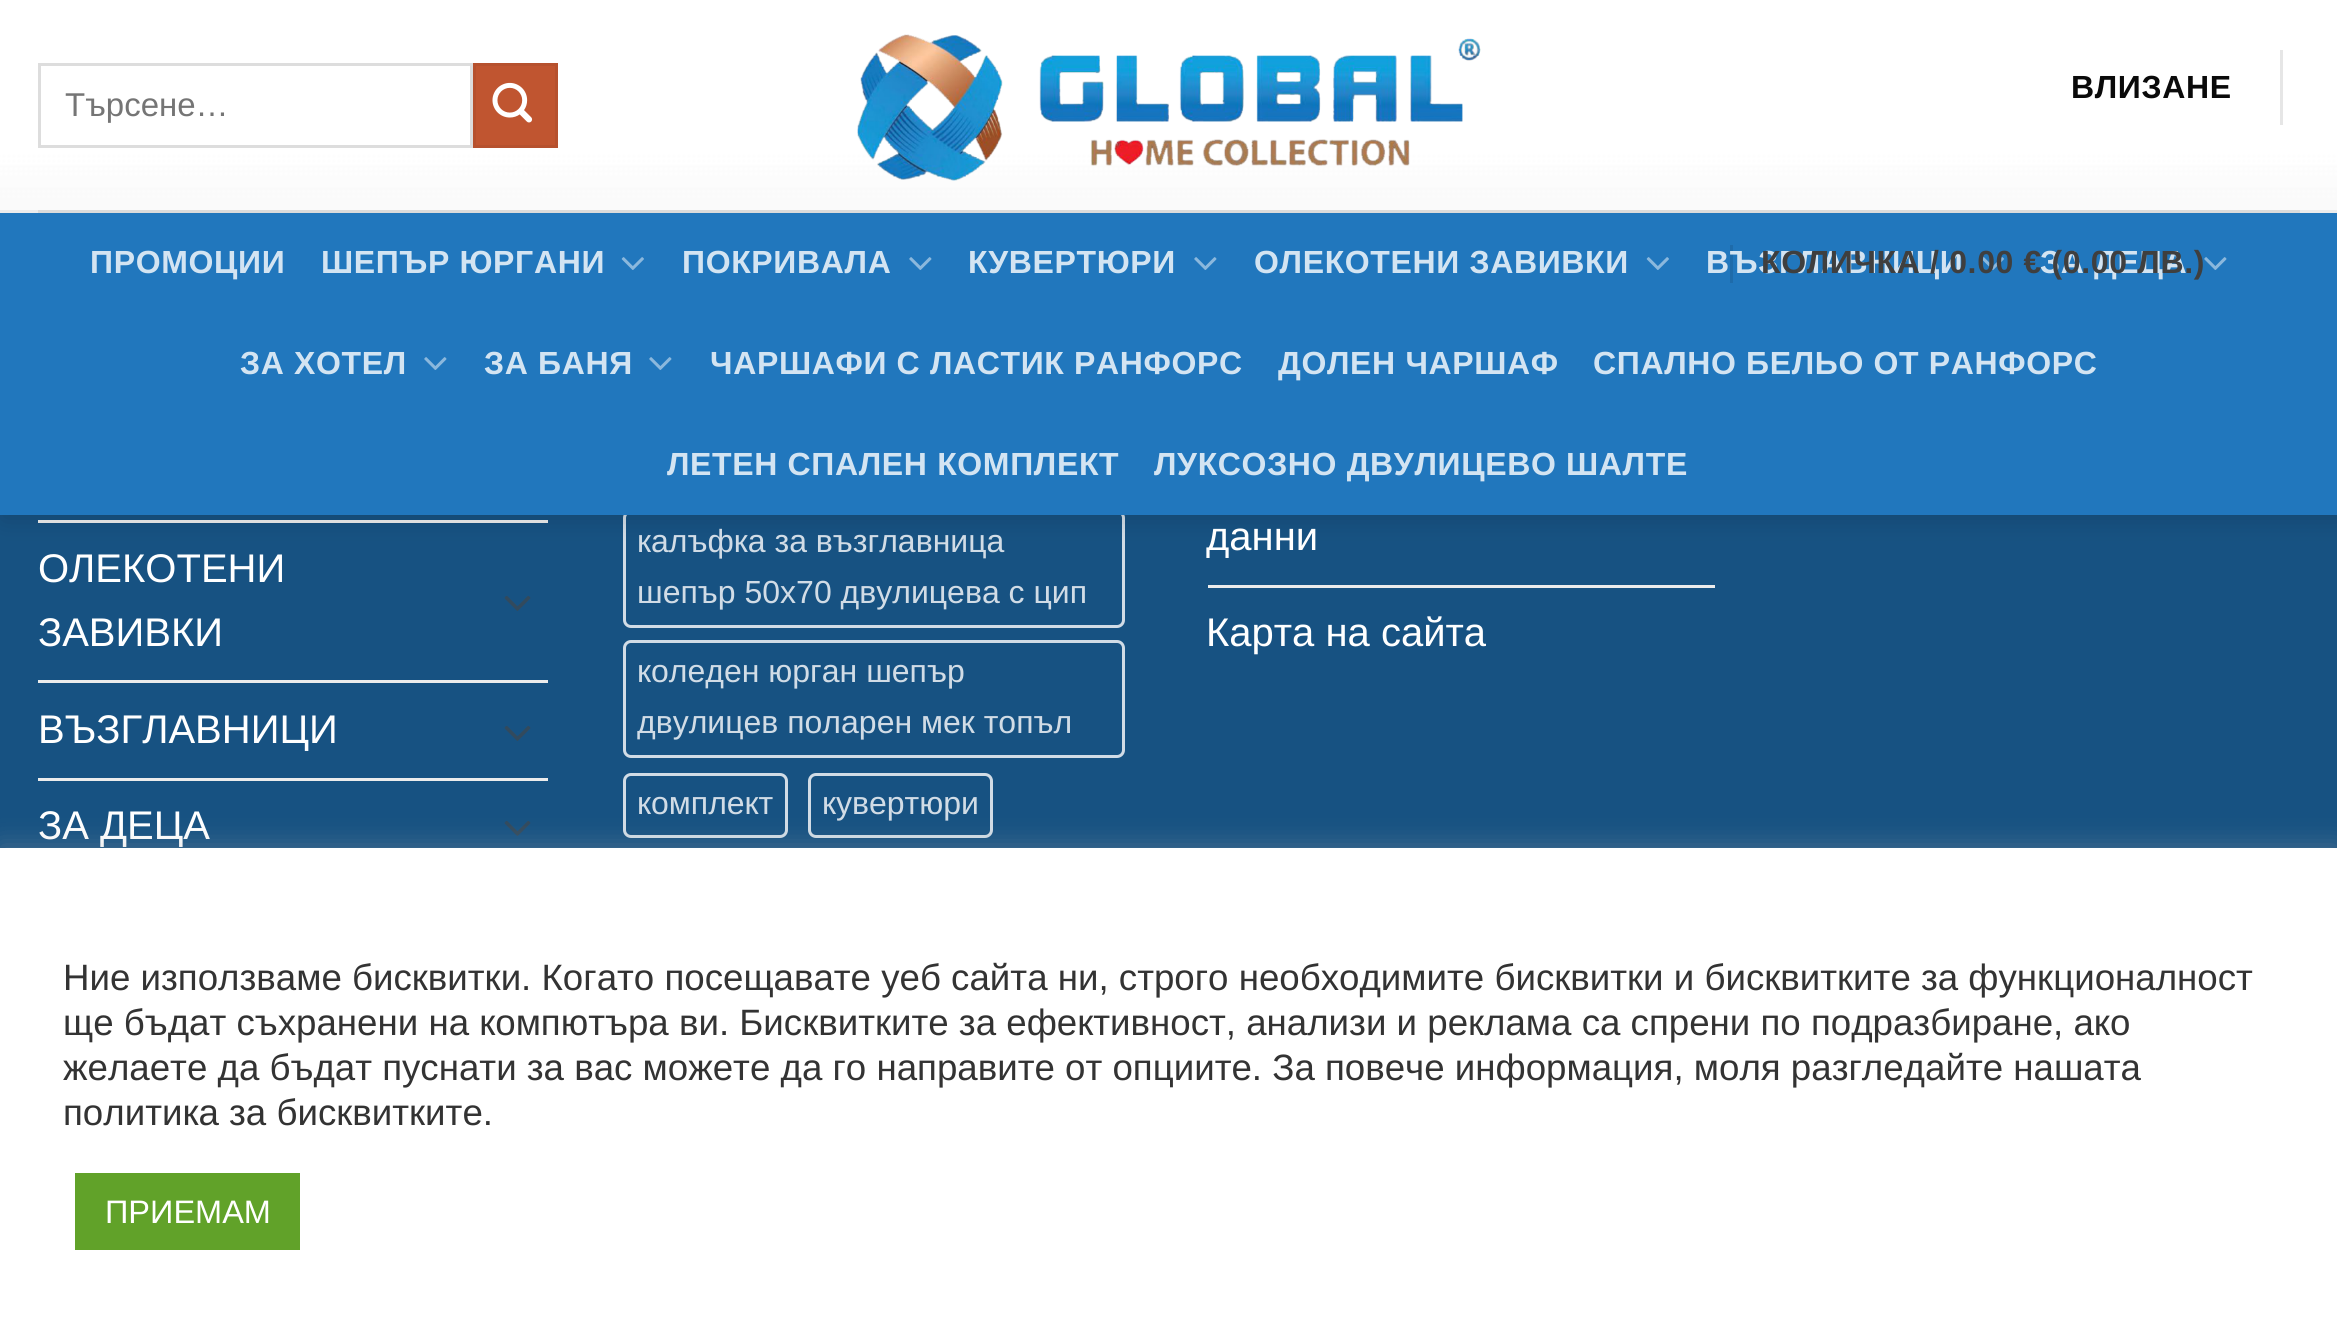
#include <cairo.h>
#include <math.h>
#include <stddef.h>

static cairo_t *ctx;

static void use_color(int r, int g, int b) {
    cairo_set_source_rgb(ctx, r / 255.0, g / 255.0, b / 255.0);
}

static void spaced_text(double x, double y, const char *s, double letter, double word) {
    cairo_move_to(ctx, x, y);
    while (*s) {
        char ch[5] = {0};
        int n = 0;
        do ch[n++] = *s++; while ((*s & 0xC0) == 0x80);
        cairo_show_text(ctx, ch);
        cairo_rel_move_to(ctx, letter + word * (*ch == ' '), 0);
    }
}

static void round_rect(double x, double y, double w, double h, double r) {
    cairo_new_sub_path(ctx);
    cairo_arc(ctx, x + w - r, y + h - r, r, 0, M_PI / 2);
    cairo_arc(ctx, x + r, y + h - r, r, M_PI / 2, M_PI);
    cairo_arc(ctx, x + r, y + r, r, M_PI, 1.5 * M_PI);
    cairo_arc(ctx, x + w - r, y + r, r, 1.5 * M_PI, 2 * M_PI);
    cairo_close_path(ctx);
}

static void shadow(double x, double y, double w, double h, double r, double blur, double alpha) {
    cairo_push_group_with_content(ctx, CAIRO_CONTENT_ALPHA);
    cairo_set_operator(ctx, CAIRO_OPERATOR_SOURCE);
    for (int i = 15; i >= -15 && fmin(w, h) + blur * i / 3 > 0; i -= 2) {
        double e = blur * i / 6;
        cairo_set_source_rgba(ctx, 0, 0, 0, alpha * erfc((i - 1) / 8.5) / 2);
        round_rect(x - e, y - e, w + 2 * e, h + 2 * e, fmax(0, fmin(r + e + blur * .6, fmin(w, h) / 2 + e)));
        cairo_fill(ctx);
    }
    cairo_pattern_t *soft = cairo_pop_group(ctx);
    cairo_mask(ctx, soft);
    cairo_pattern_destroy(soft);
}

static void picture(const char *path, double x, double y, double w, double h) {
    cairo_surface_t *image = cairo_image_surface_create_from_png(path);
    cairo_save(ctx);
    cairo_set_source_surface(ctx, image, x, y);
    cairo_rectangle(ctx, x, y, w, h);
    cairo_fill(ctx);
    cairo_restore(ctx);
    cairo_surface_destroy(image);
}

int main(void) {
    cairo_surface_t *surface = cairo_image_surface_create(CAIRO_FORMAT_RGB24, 2337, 1325);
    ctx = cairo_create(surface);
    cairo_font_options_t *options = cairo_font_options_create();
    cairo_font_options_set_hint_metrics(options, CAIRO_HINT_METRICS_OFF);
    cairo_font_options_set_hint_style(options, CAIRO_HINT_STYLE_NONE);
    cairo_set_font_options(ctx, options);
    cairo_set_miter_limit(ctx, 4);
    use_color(23, 82, 130);
    cairo_paint(ctx);
    use_color(236, 236, 236);
    cairo_rectangle(ctx, 38, 520, 510, 3);
    cairo_fill(ctx);
    round_rect(624.5, 511.5, 499, 115, 6.5);
    use_color(209, 220, 230);
    cairo_set_line_width(ctx, 3);
    cairo_stroke(ctx);
    use_color(0, 0, 0);
    shadow(3, 3, 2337, 515, 0, 12.5, 0.15);
    picture("img1.png", 0, 0, 2337, 210);
    use_color(236, 236, 236);
    cairo_rectangle(ctx, 0, 210, 2337, 3);
    cairo_fill(ctx);
    cairo_rectangle(ctx, 39.5, 64.5, 432, 82);
    use_color(221, 221, 221);
    cairo_stroke(ctx);
    cairo_select_font_face(ctx, "Liberation Sans", CAIRO_FONT_SLANT_NORMAL, CAIRO_FONT_WEIGHT_NORMAL);
    cairo_set_font_size(ctx, 33);
    use_color(117, 117, 117);
    cairo_move_to(ctx, 65, 116);
    cairo_show_text(ctx, "Търсене…");
    use_color(192, 85, 48);
    cairo_rectangle(ctx, 474.5, 64.5, 82, 82);
    cairo_fill_preserve(ctx);
    use_color(182, 81, 46);
    cairo_stroke(ctx);
    picture("img2.png", 492, 82, 41, 41);
    picture("img3.png", 857, 34, 624, 147);
    cairo_select_font_face(ctx, "Liberation Sans", CAIRO_FONT_SLANT_NORMAL, CAIRO_FONT_WEIGHT_BOLD);
    cairo_set_font_size(ctx, 32);
    use_color(10, 10, 10);
    spaced_text(2071, 98, "ВЛИЗАНЕ", 0.65, 0);
    use_color(230, 230, 230);
    cairo_rectangle(ctx, 2280, 50, 3, 75);
    cairo_fill(ctx);
    use_color(33, 119, 189);
    cairo_rectangle(ctx, 0, 213, 2337, 302);
    cairo_fill(ctx);
    cairo_set_source_rgba(ctx, 0, 0, 0, 0.1);
    cairo_rectangle(ctx, 1730, 245, 3, 38);
    cairo_fill(ctx);
    use_color(211, 228, 242);
    spaced_text(1706, 273, "ВЪЗГЛАВНИЦИ", 0.65, 0);
    picture("img4.png", 1981, 257, 23, 13);
    spaced_text(2040, 273, "ЗА ДЕЦА", 0.65, 0);
    use_color(63, 63, 63);
    spaced_text(1761, 273, "КОЛИЧКА / 0.00 € (0.00 ЛВ.)", 0.65, 0);
    use_color(219, 219, 219);
    cairo_rectangle(ctx, 38, 210, 2262, 3);
    cairo_fill(ctx);
    use_color(211, 228, 242);
    spaced_text(90, 273, "ПРОМОЦИИ", 0.65, 0);
    spaced_text(321, 273, "ШЕПЪР ЮРГАНИ", 0.65, 0);
    picture("img4.png", 621, 257, 23, 13);
    spaced_text(682, 273, "ПОКРИВАЛА", 0.65, 0);
    picture("img5.png", 909, 257, 23, 13);
    spaced_text(968, 273, "КУВЕРТЮРИ", 0.65, 0);
    picture("img5.png", 1194, 257, 23, 13);
    spaced_text(1254, 273, "ОЛЕКОТЕНИ ЗАВИВКИ", 0.65, 0);
    picture("img4.png", 1646, 257, 23, 13);
    picture("img5.png", 2204, 257, 23, 13);
    spaced_text(240, 374, "ЗА ХОТЕЛ", 0.65, 0);
    picture("img5.png", 424, 357, 23, 13);
    spaced_text(484, 374, "ЗА БАНЯ", 0.65, 0);
    picture("img5.png", 649, 357, 23, 13);
    spaced_text(710, 374, "ЧАРШАФИ С ЛАСТИК РАНФОРС", 0.65, 0);
    spaced_text(1278, 374, "ДОЛЕН ЧАРШАФ", 0.65, 0);
    spaced_text(1593, 374, "СПАЛНО БЕЛЬО ОТ РАНФОРС", 0.65, 0);
    spaced_text(667, 475, "ЛЕТЕН СПАЛЕН КОМПЛЕКТ", 0.65, 0);
    spaced_text(1154, 475, "ЛУКСОЗНО ДВУЛИЦЕВО ШАЛТЕ", 0.65, 0);
    cairo_select_font_face(ctx, "Liberation Sans", CAIRO_FONT_SLANT_NORMAL, CAIRO_FONT_WEIGHT_NORMAL);
    cairo_set_font_size(ctx, 40);
    use_color(255, 255, 255);
    cairo_move_to(ctx, 38, 582);
    cairo_show_text(ctx, "ОЛЕКОТЕНИ");
    cairo_move_to(ctx, 38, 646);
    cairo_show_text(ctx, "ЗАВИВКИ");
    picture("img6.png", 504, 596, 27, 15);
    use_color(236, 236, 236);
    cairo_rectangle(ctx, 38, 680, 510, 3);
    cairo_fill(ctx);
    use_color(255, 255, 255);
    cairo_move_to(ctx, 38, 743);
    cairo_show_text(ctx, "ВЪЗГЛАВНИЦИ");
    picture("img6.png", 504, 726, 27, 15);
    use_color(236, 236, 236);
    cairo_rectangle(ctx, 38, 778, 510, 3);
    cairo_fill(ctx);
    use_color(255, 255, 255);
    cairo_move_to(ctx, 38, 839);
    cairo_show_text(ctx, "ЗА ДЕЦА");
    picture("img6.png", 504, 821, 27, 15);
    cairo_set_font_size(ctx, 32);
    use_color(209, 220, 230);
    cairo_move_to(ctx, 637, 552);
    cairo_show_text(ctx, "калъфка за възглавница");
    cairo_move_to(ctx, 637, 603);
    cairo_show_text(ctx, "шепър 50х70 двулицева с цип");
    round_rect(624.5, 641.5, 499, 115, 6.5);
    cairo_stroke(ctx);
    cairo_move_to(ctx, 637, 682);
    cairo_show_text(ctx, "коледен юрган шепър");
    cairo_move_to(ctx, 637, 733);
    cairo_show_text(ctx, "двулицев поларен мек топъл");
    round_rect(624.5, 774.5, 162, 62, 6.5);
    cairo_stroke(ctx);
    cairo_move_to(ctx, 637, 814);
    cairo_show_text(ctx, "комплект");
    round_rect(809.5, 774.5, 182, 62, 6.5);
    cairo_stroke(ctx);
    cairo_move_to(ctx, 822, 814);
    cairo_show_text(ctx, "кувертюри");
    cairo_set_font_size(ctx, 40);
    use_color(255, 255, 255);
    cairo_move_to(ctx, 1206, 550);
    cairo_show_text(ctx, "данни");
    use_color(236, 236, 236);
    cairo_rectangle(ctx, 1208, 585, 507, 3);
    cairo_fill(ctx);
    use_color(255, 255, 255);
    cairo_move_to(ctx, 1206, 646);
    cairo_show_text(ctx, "Карта на сайта");
    use_color(172, 171, 171);
    shadow(0, 845, 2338, 478, 0, 12.5, 0.3);
    use_color(255, 255, 255);
    cairo_rectangle(ctx, 0, 848, 2337, 477);
    cairo_fill(ctx);
    cairo_set_font_size(ctx, 36.67);
    use_color(51, 51, 51);
    cairo_move_to(ctx, 63, 990);
    cairo_show_text(ctx, "Ние използваме бисквитки. Когато посещавате уеб сайта ни, строго необходимите бисквитки и бисквитките за функционалност");
    cairo_move_to(ctx, 63, 1035);
    cairo_show_text(ctx, "ще бъдат съхранени на компютъра ви. Бисквитките за ефективност, анализи и реклама са спрени по подразбиране, ако");
    cairo_move_to(ctx, 63, 1080);
    cairo_show_text(ctx, "желаете да бъдат пуснати за вас можете да го направите от опциите. За повече информация, моля разгледайте нашата");
    cairo_move_to(ctx, 63, 1125);
    cairo_show_text(ctx, "политика за бисквитките.");
    use_color(97, 162, 41);
    cairo_rectangle(ctx, 75, 1173, 225, 77);
    cairo_fill(ctx);
    cairo_set_font_size(ctx, 32.5);
    use_color(255, 255, 255);
    cairo_move_to(ctx, 105, 1223);
    cairo_show_text(ctx, "ПРИЕМАМ");
    cairo_surface_write_to_png(surface, "result.png");
    cairo_font_options_destroy(options);
    cairo_destroy(ctx);
    cairo_surface_destroy(surface);
    return 0;
}
